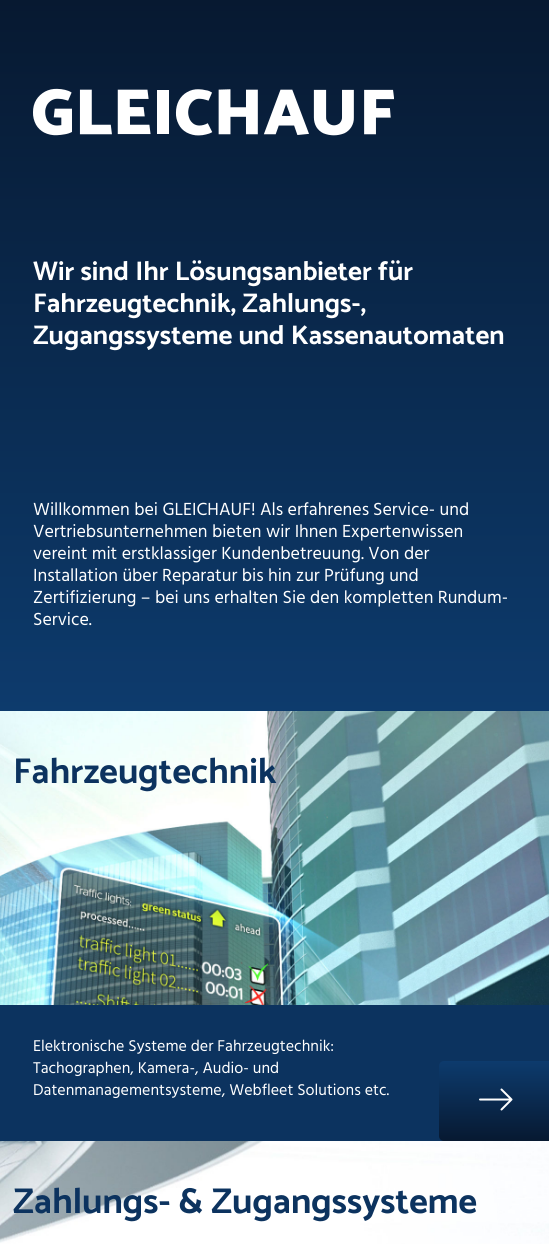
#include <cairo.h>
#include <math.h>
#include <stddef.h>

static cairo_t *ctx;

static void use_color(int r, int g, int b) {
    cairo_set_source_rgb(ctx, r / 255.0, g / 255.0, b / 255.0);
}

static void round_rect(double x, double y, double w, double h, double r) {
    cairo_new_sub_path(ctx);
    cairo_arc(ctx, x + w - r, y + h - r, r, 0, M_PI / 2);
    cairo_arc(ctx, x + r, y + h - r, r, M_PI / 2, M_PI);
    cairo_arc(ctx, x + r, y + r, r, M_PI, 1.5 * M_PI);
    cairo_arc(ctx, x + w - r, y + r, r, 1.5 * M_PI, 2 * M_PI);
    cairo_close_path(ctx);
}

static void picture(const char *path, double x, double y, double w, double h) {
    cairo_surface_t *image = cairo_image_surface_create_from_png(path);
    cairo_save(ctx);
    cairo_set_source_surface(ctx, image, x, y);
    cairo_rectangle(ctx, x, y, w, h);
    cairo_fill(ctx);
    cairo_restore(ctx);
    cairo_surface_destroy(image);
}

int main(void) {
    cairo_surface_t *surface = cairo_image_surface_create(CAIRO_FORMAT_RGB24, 549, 1245);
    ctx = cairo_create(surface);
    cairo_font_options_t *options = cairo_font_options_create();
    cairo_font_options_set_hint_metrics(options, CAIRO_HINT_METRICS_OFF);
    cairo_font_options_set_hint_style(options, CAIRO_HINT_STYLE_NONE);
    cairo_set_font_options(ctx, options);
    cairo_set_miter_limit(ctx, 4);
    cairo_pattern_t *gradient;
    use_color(255, 255, 255);
    cairo_paint(ctx);
    gradient = cairo_pattern_create_linear(274, 711, 274, 0);
    cairo_pattern_add_color_stop_rgba(gradient, 0, 0.051, 0.231, 0.427, 1);
    cairo_pattern_add_color_stop_rgba(gradient, 1, 0.027, 0.098, 0.192, 1);
    cairo_set_source(ctx, gradient);
    cairo_pattern_destroy(gradient);
    cairo_rectangle(ctx, 0, 0, 549, 711);
    cairo_fill(ctx);
    picture("img1.png", 33, 88, 361, 48);
    cairo_select_font_face(ctx, "Catamaran Thin", CAIRO_FONT_SLANT_NORMAL, CAIRO_FONT_WEIGHT_NORMAL);
    cairo_set_font_size(ctx, 27);
    use_color(255, 255, 255);
    cairo_move_to(ctx, 33, 280);
    cairo_show_text(ctx, "Wir sind Ihr Lösungsanbieter für");
    cairo_move_to(ctx, 33, 312);
    cairo_show_text(ctx, "Fahrzeugtechnik, Zahlungs-,");
    cairo_move_to(ctx, 33, 344);
    cairo_show_text(ctx, "Zugangssysteme und Kassenautomaten");
    cairo_select_font_face(ctx, "Hind Madurai", CAIRO_FONT_SLANT_NORMAL, CAIRO_FONT_WEIGHT_NORMAL);
    cairo_set_font_size(ctx, 18);
    cairo_move_to(ctx, 33, 515);
    cairo_show_text(ctx, "Willkommen bei GLEICHAUF! Als erfahrenes");
    cairo_move_to(ctx, 373, 515);
    cairo_show_text(ctx, "Service- und");
    cairo_move_to(ctx, 33, 537);
    cairo_show_text(ctx, "Vertriebsunternehmen bieten wir Ihnen Expertenwissen");
    cairo_move_to(ctx, 33, 559);
    cairo_show_text(ctx, "vereint mit erstklassiger Kundenbetreuung. Von der");
    cairo_move_to(ctx, 33, 581);
    cairo_show_text(ctx, "Installation über Reparatur bis hin zur Prüfung und");
    cairo_move_to(ctx, 33, 603);
    cairo_show_text(ctx, "Zertifizierung – bei uns erhalten Sie den kompletten Rundum-");
    cairo_move_to(ctx, 33, 625);
    cairo_show_text(ctx, "Service.");
    picture("img2.png", 0, 711, 549, 294);
    cairo_select_font_face(ctx, "Catamaran Thin", CAIRO_FONT_SLANT_NORMAL, CAIRO_FONT_WEIGHT_NORMAL);
    cairo_set_font_size(ctx, 36);
    use_color(12, 51, 95);
    cairo_move_to(ctx, 13, 783);
    cairo_show_text(ctx, "Fahrzeugtechnik");
    cairo_rectangle(ctx, 0, 1005, 549, 136);
    cairo_fill(ctx);
    cairo_select_font_face(ctx, "Hind Madurai", CAIRO_FONT_SLANT_NORMAL, CAIRO_FONT_WEIGHT_NORMAL);
    cairo_set_font_size(ctx, 16);
    use_color(255, 255, 255);
    cairo_move_to(ctx, 33, 1051);
    cairo_show_text(ctx, "Elektronische Systeme der Fahrzeugtechnik:");
    cairo_move_to(ctx, 33, 1073);
    cairo_show_text(ctx, "Tachographen, Kamera-, Audio- und");
    cairo_move_to(ctx, 33, 1095);
    cairo_show_text(ctx, "Datenmanagementsysteme, Webfleet Solutions etc.");
    gradient = cairo_pattern_create_linear(497, 1061, 497, 1141);
    cairo_pattern_add_color_stop_rgba(gradient, 0, 0.051, 0.231, 0.427, 1);
    cairo_pattern_add_color_stop_rgba(gradient, 1, 0.027, 0.098, 0.192, 1);
    cairo_set_source(ctx, gradient);
    cairo_pattern_destroy(gradient);
    round_rect(439, 1061, 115, 80, 5);
    cairo_fill(ctx);
    cairo_new_path(ctx);
    cairo_move_to(ctx, 480, 1099.5);
    cairo_line_to(ctx, 511, 1099.5);
    cairo_move_to(ctx, 501.5, 1089.5);
    cairo_line_to(ctx, 511.5, 1099.5);
    cairo_move_to(ctx, 511.5, 1099.5);
    cairo_line_to(ctx, 501.5, 1109.5);
    use_color(255, 255, 255);
    cairo_set_line_cap(ctx, CAIRO_LINE_CAP_ROUND);
    cairo_stroke(ctx);
    picture("img3.png", 0, 1141, 549, 103);
    cairo_select_font_face(ctx, "Catamaran Thin", CAIRO_FONT_SLANT_NORMAL, CAIRO_FONT_WEIGHT_NORMAL);
    cairo_set_font_size(ctx, 36);
    use_color(12, 51, 95);
    cairo_move_to(ctx, 13, 1213);
    cairo_show_text(ctx, "Zahlungs- & Zugangssysteme");
    cairo_surface_write_to_png(surface, "result.png");
    cairo_font_options_destroy(options);
    cairo_destroy(ctx);
    cairo_surface_destroy(surface);
    return 0;
}
